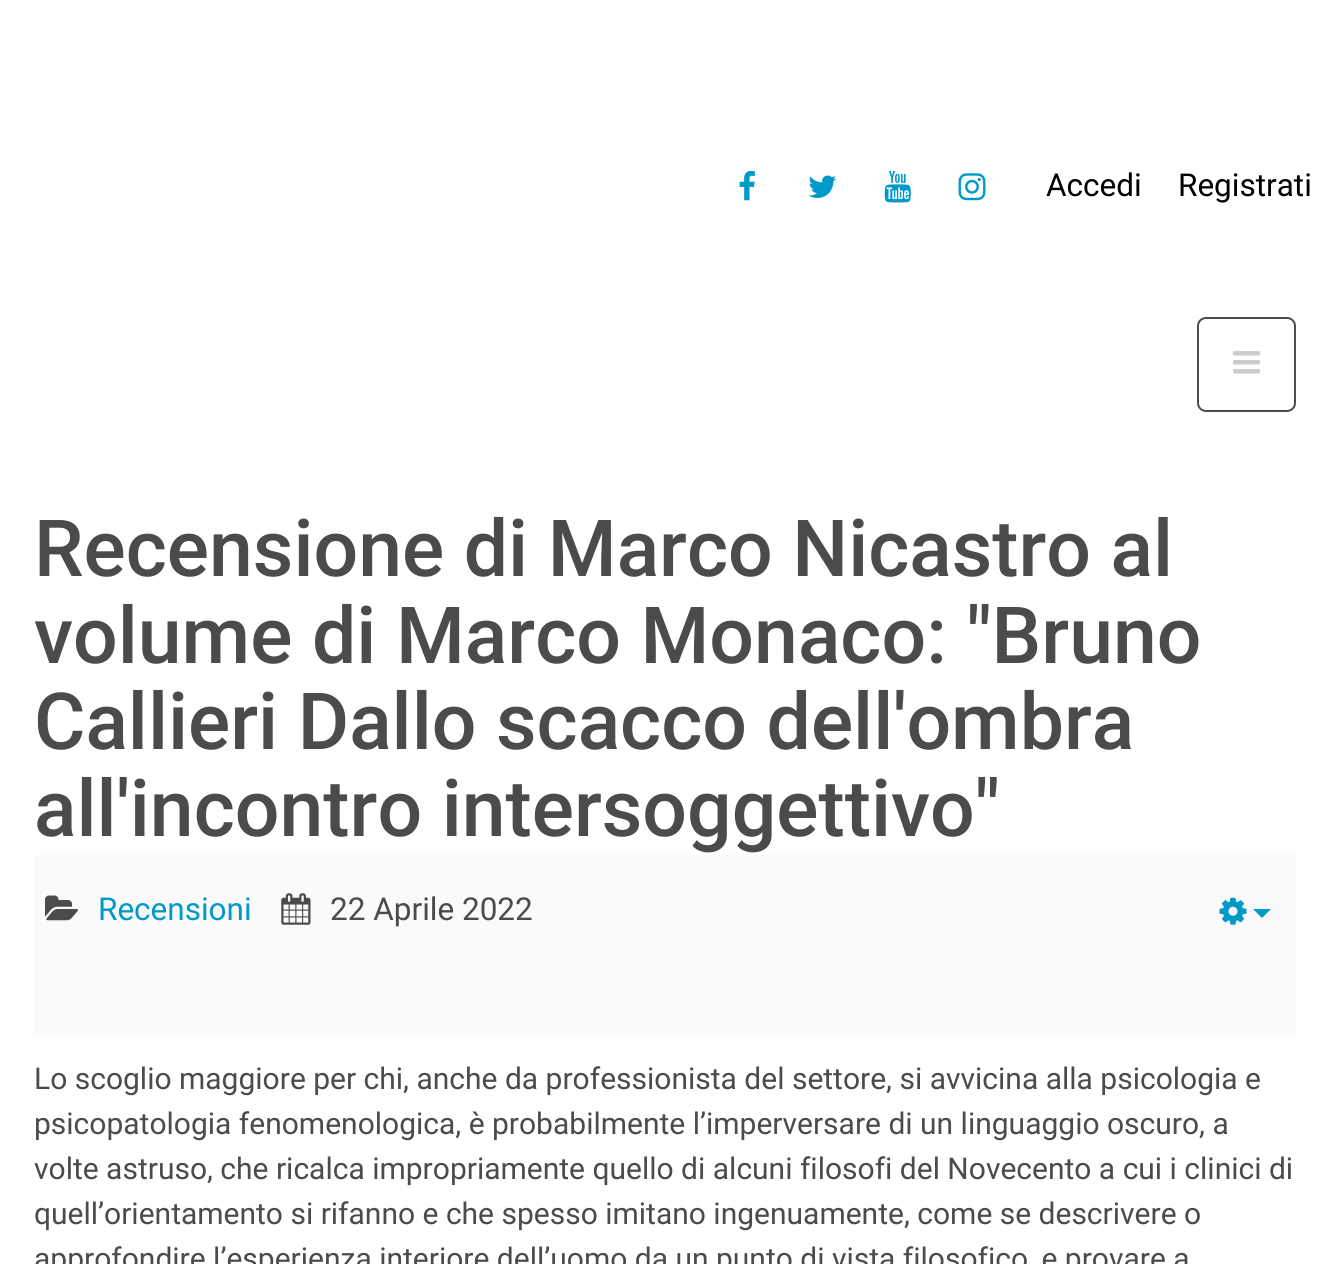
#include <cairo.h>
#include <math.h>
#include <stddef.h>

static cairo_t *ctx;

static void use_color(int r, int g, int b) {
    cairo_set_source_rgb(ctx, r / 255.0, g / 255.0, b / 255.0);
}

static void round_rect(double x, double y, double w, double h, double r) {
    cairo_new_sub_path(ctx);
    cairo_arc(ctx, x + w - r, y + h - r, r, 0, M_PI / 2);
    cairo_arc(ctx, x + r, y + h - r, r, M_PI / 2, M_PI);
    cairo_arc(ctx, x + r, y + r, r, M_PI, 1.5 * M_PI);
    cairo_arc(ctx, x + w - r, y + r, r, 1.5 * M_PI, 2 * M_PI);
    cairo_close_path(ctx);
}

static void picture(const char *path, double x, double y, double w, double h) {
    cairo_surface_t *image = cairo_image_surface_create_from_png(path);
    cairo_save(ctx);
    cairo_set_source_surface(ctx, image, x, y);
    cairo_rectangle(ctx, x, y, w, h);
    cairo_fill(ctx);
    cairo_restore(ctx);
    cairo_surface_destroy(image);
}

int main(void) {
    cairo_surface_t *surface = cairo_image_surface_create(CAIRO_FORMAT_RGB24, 1328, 1264);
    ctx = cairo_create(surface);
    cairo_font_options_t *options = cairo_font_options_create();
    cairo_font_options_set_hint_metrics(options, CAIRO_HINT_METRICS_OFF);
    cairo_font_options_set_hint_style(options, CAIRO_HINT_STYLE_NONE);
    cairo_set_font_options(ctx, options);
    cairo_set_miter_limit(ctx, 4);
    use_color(255, 255, 255);
    cairo_paint(ctx);
    picture("img1.png", 739, 171, 16, 30);
    picture("img2.png", 808, 175, 29, 23);
    picture("img3.png", 884, 171, 27, 32);
    picture("img4.png", 958, 173, 28, 28);
    cairo_select_font_face(ctx, "Roboto", CAIRO_FONT_SLANT_NORMAL, CAIRO_FONT_WEIGHT_NORMAL);
    cairo_set_font_size(ctx, 31.5);
    use_color(0, 0, 0);
    cairo_move_to(ctx, 1046, 196);
    cairo_show_text(ctx, "Accedi");
    cairo_move_to(ctx, 1178, 196);
    cairo_show_text(ctx, "Registrati");
    round_rect(1198, 318, 97, 93, 8);
    use_color(76, 76, 76);
    cairo_stroke(ctx);
    picture("img5.png", 1233, 351, 27, 23);
    cairo_select_font_face(ctx, "Roboto Medium", CAIRO_FONT_SLANT_NORMAL, CAIRO_FONT_WEIGHT_NORMAL);
    cairo_set_font_size(ctx, 78.75);
    use_color(75, 75, 75);
    cairo_move_to(ctx, 34, 576);
    cairo_show_text(ctx, "Recensione di Marco Nicastro al");
    cairo_move_to(ctx, 34, 663);
    cairo_show_text(ctx, "volume di Marco Monaco: \"Bruno");
    cairo_move_to(ctx, 34, 749);
    cairo_show_text(ctx, "Callieri Dallo scacco dell'ombra");
    cairo_move_to(ctx, 34, 836);
    cairo_show_text(ctx, "all'incontro intersoggettivo\"");
    use_color(250, 250, 250);
    cairo_rectangle(ctx, 34, 855, 1262, 180);
    cairo_fill(ctx);
    picture("img6.png", 45, 895, 33, 26);
    cairo_select_font_face(ctx, "Roboto", CAIRO_FONT_SLANT_NORMAL, CAIRO_FONT_WEIGHT_NORMAL);
    cairo_set_font_size(ctx, 31.5);
    use_color(0, 154, 202);
    cairo_move_to(ctx, 98, 920);
    cairo_show_text(ctx, "Recensioni");
    picture("img7.png", 281, 893, 30, 32);
    use_color(75, 75, 75);
    cairo_move_to(ctx, 330, 920);
    cairo_show_text(ctx, "22 Aprile 2022");
    picture("img8.png", 1219, 897, 28, 28);
    use_color(0, 154, 202);
    cairo_new_path(ctx);
    cairo_move_to(ctx, 1253, 909);
    cairo_line_to(ctx, 1271, 909);
    cairo_line_to(ctx, 1262, 918);
    cairo_close_path(ctx);
    cairo_fill(ctx);
    cairo_set_font_size(ctx, 30);
    use_color(75, 75, 75);
    cairo_move_to(ctx, 34, 1089);
    cairo_show_text(ctx, "Lo scoglio maggiore per chi, anche da professionista del settore, si avvicina alla psicologia e");
    cairo_move_to(ctx, 34, 1134);
    cairo_show_text(ctx, "psicopatologia fenomenologica, è probabilmente l’imperversare di un linguaggio oscuro, a");
    cairo_move_to(ctx, 34, 1179);
    cairo_show_text(ctx, "volte astruso, che ricalca impropriamente quello di alcuni filosofi del Novecento a cui i clinici di");
    cairo_move_to(ctx, 34, 1224);
    cairo_show_text(ctx, "quell’orientamento si rifanno e che spesso imitano ingenuamente, come se descrivere o");
    cairo_move_to(ctx, 34, 1269);
    cairo_show_text(ctx, "approfondire l’esperienza interiore dell’uomo da un punto di vista filosofico, e provare a");
    cairo_surface_write_to_png(surface, "result.png");
    cairo_font_options_destroy(options);
    cairo_destroy(ctx);
    cairo_surface_destroy(surface);
    return 0;
}
